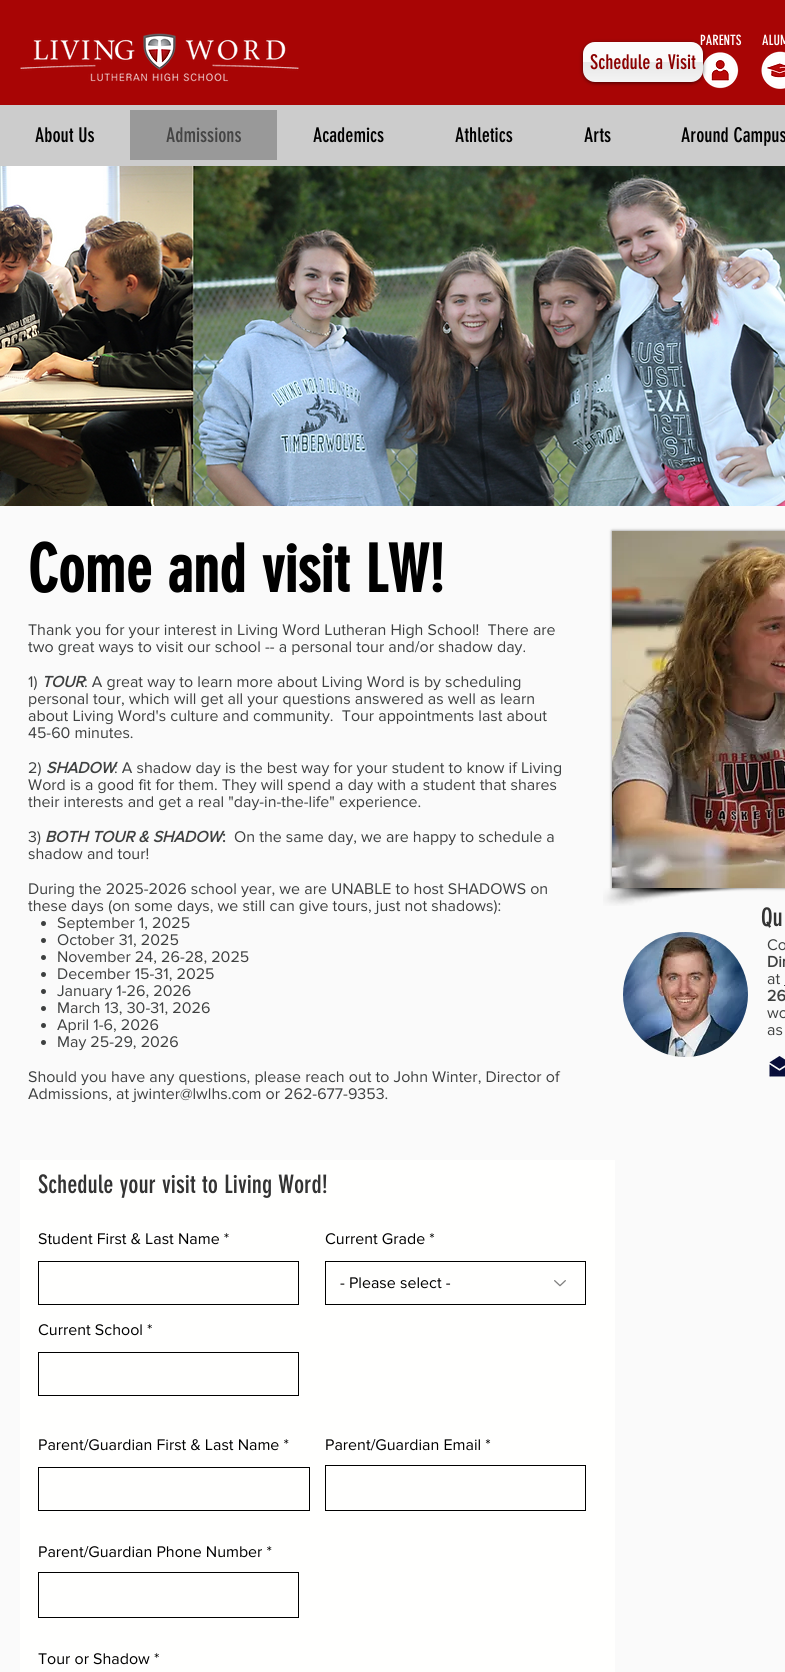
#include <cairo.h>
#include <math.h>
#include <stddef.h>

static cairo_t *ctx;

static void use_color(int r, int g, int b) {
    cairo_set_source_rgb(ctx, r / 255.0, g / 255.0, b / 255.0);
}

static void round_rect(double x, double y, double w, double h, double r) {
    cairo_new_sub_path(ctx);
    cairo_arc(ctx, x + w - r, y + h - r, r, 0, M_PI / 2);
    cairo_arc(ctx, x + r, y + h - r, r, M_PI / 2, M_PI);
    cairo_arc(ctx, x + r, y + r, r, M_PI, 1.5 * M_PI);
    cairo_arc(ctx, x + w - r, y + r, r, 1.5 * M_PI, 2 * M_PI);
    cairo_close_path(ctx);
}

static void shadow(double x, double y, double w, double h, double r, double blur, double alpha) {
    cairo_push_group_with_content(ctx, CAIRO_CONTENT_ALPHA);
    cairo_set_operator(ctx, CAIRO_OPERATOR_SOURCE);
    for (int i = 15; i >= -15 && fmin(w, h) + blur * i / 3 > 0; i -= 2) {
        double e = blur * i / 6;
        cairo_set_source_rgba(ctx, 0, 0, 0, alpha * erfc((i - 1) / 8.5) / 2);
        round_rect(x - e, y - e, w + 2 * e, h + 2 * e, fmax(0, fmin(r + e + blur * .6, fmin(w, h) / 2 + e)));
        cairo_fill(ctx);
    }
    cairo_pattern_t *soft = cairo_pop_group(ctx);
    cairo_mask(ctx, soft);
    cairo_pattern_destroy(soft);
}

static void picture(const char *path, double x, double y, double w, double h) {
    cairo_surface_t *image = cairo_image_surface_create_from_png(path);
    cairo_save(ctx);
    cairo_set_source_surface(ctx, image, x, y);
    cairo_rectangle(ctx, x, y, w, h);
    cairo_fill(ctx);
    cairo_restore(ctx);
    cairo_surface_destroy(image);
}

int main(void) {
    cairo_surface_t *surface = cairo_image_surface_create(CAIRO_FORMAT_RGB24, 785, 1672);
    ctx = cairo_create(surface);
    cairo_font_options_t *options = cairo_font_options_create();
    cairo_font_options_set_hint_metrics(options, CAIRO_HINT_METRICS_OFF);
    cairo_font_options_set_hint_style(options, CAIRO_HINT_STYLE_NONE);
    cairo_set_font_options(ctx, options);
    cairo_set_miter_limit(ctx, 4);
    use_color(250, 250, 250);
    cairo_paint(ctx);
    use_color(168, 5, 5);
    cairo_rectangle(ctx, 0, 0, 785, 105);
    cairo_fill(ctx);
    picture("img1.png", 20, 33, 279, 49);
    cairo_select_font_face(ctx, "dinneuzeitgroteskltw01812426", CAIRO_FONT_SLANT_NORMAL, CAIRO_FONT_WEIGHT_NORMAL);
    cairo_set_font_size(ctx, 14);
    use_color(255, 255, 255);
    cairo_move_to(ctx, 700, 45);
    cairo_show_text(ctx, "PARENTS");
    cairo_move_to(ctx, 762, 45);
    cairo_show_text(ctx, "ALUM");
    picture("img2.png", 702, 52, 37, 37);
    picture("img3.png", 761, 51, 24, 38);
    use_color(204, 204, 204);
    cairo_rectangle(ctx, 0, 105, 785, 61);
    cairo_fill(ctx);
    cairo_set_font_size(ctx, 20);
    use_color(0, 0, 0);
    cairo_move_to(ctx, 35, 142);
    cairo_show_text(ctx, "About Us");
    use_color(153, 153, 153);
    cairo_rectangle(ctx, 130, 110, 147, 50);
    cairo_fill(ctx);
    use_color(68, 68, 68);
    cairo_move_to(ctx, 166, 142);
    cairo_show_text(ctx, "Admissions");
    use_color(0, 0, 0);
    cairo_move_to(ctx, 313, 142);
    cairo_show_text(ctx, "Academics");
    cairo_move_to(ctx, 455, 142);
    cairo_show_text(ctx, "Athletics");
    cairo_move_to(ctx, 584, 142);
    cairo_show_text(ctx, "Arts");
    cairo_move_to(ctx, 681, 142);
    cairo_show_text(ctx, "Around Campus");
    use_color(0, 0, 0);
    shadow(583, 43, 120, 40, 12, 2, 0.6);
    use_color(250, 250, 250);
    round_rect(583, 42, 120, 40, 12);
    cairo_fill(ctx);
    picture("img4.png", 583, 42, 120, 40);
    use_color(139, 0, 0);
    cairo_move_to(ctx, 590, 69);
    cairo_show_text(ctx, "Schedule a Visit");
    picture("img5.png", 0, 166, 785, 340);
    cairo_select_font_face(ctx, "dinneuzeitgroteskltw01812426", CAIRO_FONT_SLANT_NORMAL, CAIRO_FONT_WEIGHT_BOLD);
    cairo_set_font_size(ctx, 65);
    use_color(0, 0, 0);
    cairo_move_to(ctx, 28, 592);
    cairo_show_text(ctx, "Come and visit LW!");
    use_color(0, 0, 0);
    shadow(612, 531, 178, 357, 0, 1.5, 0.5);
    picture("img6.png", 612, 531, 173, 357);
    picture("img7.png", 603, 888, 154, 18);
    cairo_select_font_face(ctx, "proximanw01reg", CAIRO_FONT_SLANT_NORMAL, CAIRO_FONT_WEIGHT_NORMAL);
    cairo_set_font_size(ctx, 16);
    use_color(62, 64, 64);
    cairo_move_to(ctx, 28, 635);
    cairo_show_text(ctx, "Thank you for your interest in Living Word Lutheran High School!  There are");
    cairo_move_to(ctx, 28, 652);
    cairo_show_text(ctx, "two great ways to visit our school -- a personal tour and/or shadow day.");
    cairo_move_to(ctx, 28, 687);
    cairo_show_text(ctx, "1)");
    cairo_select_font_face(ctx, "proximanw01reg", CAIRO_FONT_SLANT_ITALIC, CAIRO_FONT_WEIGHT_BOLD);
    cairo_move_to(ctx, 42, 687);
    cairo_show_text(ctx, "TOUR");
    cairo_select_font_face(ctx, "proximanw01reg", CAIRO_FONT_SLANT_NORMAL, CAIRO_FONT_WEIGHT_NORMAL);
    cairo_move_to(ctx, 84, 687);
    cairo_show_text(ctx, ": A great way to learn more about Living Word is by scheduling");
    cairo_move_to(ctx, 28, 704);
    cairo_show_text(ctx, "personal tour, which will get all your questions answered as well as learn");
    cairo_move_to(ctx, 28, 721);
    cairo_show_text(ctx, "about Living Word's culture and community.  Tour appointments last about");
    cairo_move_to(ctx, 28, 738);
    cairo_show_text(ctx, "45-60 minutes.");
    cairo_move_to(ctx, 28, 773);
    cairo_show_text(ctx, "2)");
    cairo_select_font_face(ctx, "proximanw01reg", CAIRO_FONT_SLANT_ITALIC, CAIRO_FONT_WEIGHT_BOLD);
    cairo_move_to(ctx, 46, 773);
    cairo_show_text(ctx, "SHADOW");
    cairo_select_font_face(ctx, "proximanw01reg", CAIRO_FONT_SLANT_NORMAL, CAIRO_FONT_WEIGHT_NORMAL);
    cairo_move_to(ctx, 114, 773);
    cairo_show_text(ctx, ": A shadow day is the best way for your student to know if Living");
    cairo_move_to(ctx, 28, 790);
    cairo_show_text(ctx, "Word is a good fit for them. They will spend a day with a student that shares");
    cairo_move_to(ctx, 28, 807);
    cairo_show_text(ctx, "their interests and get a real \"day-in-the-life\" experience.");
    cairo_move_to(ctx, 28, 842);
    cairo_show_text(ctx, "3)");
    cairo_select_font_face(ctx, "proximanw01reg", CAIRO_FONT_SLANT_ITALIC, CAIRO_FONT_WEIGHT_BOLD);
    cairo_move_to(ctx, 45, 842);
    cairo_show_text(ctx, "BOTH TOUR & SHADOW");
    cairo_select_font_face(ctx, "proximanw01reg", CAIRO_FONT_SLANT_NORMAL, CAIRO_FONT_WEIGHT_NORMAL);
    cairo_move_to(ctx, 234, 842);
    cairo_show_text(ctx, "On the same day, we are happy to schedule a");
    cairo_select_font_face(ctx, "proximanw01reg", CAIRO_FONT_SLANT_NORMAL, CAIRO_FONT_WEIGHT_BOLD);
    cairo_move_to(ctx, 222, 842);
    cairo_show_text(ctx, ":");
    cairo_select_font_face(ctx, "proximanw01reg", CAIRO_FONT_SLANT_NORMAL, CAIRO_FONT_WEIGHT_NORMAL);
    cairo_move_to(ctx, 28, 859);
    cairo_show_text(ctx, "shadow and tour!");
    cairo_move_to(ctx, 28, 894);
    cairo_show_text(ctx, "During the 2025-2026 school year, we are UNABLE to host SHADOWS on");
    cairo_move_to(ctx, 28, 911);
    cairo_show_text(ctx, "these days (on some days, we still can give tours, just not shadows):");
    cairo_new_path(ctx);
    cairo_arc(ctx, 43.5, 923.5, 2.5, 0, 2 * M_PI);
    cairo_fill(ctx);
    cairo_move_to(ctx, 57, 928);
    cairo_show_text(ctx, "September 1, 2025");
    cairo_new_path(ctx);
    cairo_arc(ctx, 43.5, 940.5, 2.5, 0, 2 * M_PI);
    cairo_fill(ctx);
    cairo_move_to(ctx, 57, 945);
    cairo_show_text(ctx, "October 31, 2025");
    cairo_new_path(ctx);
    cairo_arc(ctx, 43.5, 957.5, 2.5, 0, 2 * M_PI);
    cairo_fill(ctx);
    cairo_move_to(ctx, 57, 962);
    cairo_show_text(ctx, "November 24, 26-28, 2025");
    cairo_new_path(ctx);
    cairo_arc(ctx, 43.5, 974.5, 2.5, 0, 2 * M_PI);
    cairo_fill(ctx);
    cairo_move_to(ctx, 57, 979);
    cairo_show_text(ctx, "December 15-31, 2025");
    cairo_new_path(ctx);
    cairo_arc(ctx, 43.5, 991.5, 2.5, 0, 2 * M_PI);
    cairo_fill(ctx);
    cairo_move_to(ctx, 57, 996);
    cairo_show_text(ctx, "January 1-26, 2026");
    cairo_new_path(ctx);
    cairo_arc(ctx, 43.5, 1008.5, 2.5, 0, 2 * M_PI);
    cairo_fill(ctx);
    cairo_move_to(ctx, 57, 1013);
    cairo_show_text(ctx, "March 13, 30-31, 2026");
    cairo_new_path(ctx);
    cairo_arc(ctx, 43.5, 1025.5, 2.5, 0, 2 * M_PI);
    cairo_fill(ctx);
    cairo_move_to(ctx, 57, 1030);
    cairo_show_text(ctx, "April 1-6, 2026");
    cairo_new_path(ctx);
    cairo_arc(ctx, 43.5, 1042.5, 2.5, 0, 2 * M_PI);
    cairo_fill(ctx);
    cairo_move_to(ctx, 57, 1047);
    cairo_show_text(ctx, "May 25-29, 2026");
    cairo_move_to(ctx, 28, 1082);
    cairo_show_text(ctx, "Should you have any questions, please reach out to John Winter, Director of");
    cairo_move_to(ctx, 28, 1099);
    cairo_show_text(ctx, "Admissions, at jwinter@lwlhs.com or 262-677-9353.");
    cairo_select_font_face(ctx, "dinneuzeitgroteskltw01812426", CAIRO_FONT_SLANT_NORMAL, CAIRO_FONT_WEIGHT_NORMAL);
    cairo_set_font_size(ctx, 25);
    use_color(51, 51, 51);
    cairo_move_to(ctx, 761, 926);
    cairo_show_text(ctx, "Qu");
    picture("img8.png", 623, 932, 125, 125);
    cairo_select_font_face(ctx, "proximanw01reg", CAIRO_FONT_SLANT_NORMAL, CAIRO_FONT_WEIGHT_NORMAL);
    cairo_set_font_size(ctx, 16);
    use_color(62, 64, 64);
    cairo_move_to(ctx, 767, 950);
    cairo_show_text(ctx, "Co");
    cairo_select_font_face(ctx, "proximanw01reg", CAIRO_FONT_SLANT_NORMAL, CAIRO_FONT_WEIGHT_BOLD);
    cairo_move_to(ctx, 767, 967);
    cairo_show_text(ctx, "Dir");
    cairo_select_font_face(ctx, "proximanw01reg", CAIRO_FONT_SLANT_NORMAL, CAIRO_FONT_WEIGHT_NORMAL);
    cairo_move_to(ctx, 767, 984);
    cairo_show_text(ctx, "at");
    cairo_rectangle(ctx, 784, 985, 1, 1);
    cairo_fill(ctx);
    cairo_select_font_face(ctx, "proximanw01reg", CAIRO_FONT_SLANT_NORMAL, CAIRO_FONT_WEIGHT_BOLD);
    cairo_move_to(ctx, 767, 1001);
    cairo_show_text(ctx, "26");
    cairo_select_font_face(ctx, "proximanw01reg", CAIRO_FONT_SLANT_NORMAL, CAIRO_FONT_WEIGHT_NORMAL);
    cairo_move_to(ctx, 767, 1018);
    cairo_show_text(ctx, "wo");
    cairo_move_to(ctx, 767, 1035);
    cairo_show_text(ctx, "as");
    picture("img9.png", 769, 1056, 16, 21);
    use_color(255, 255, 254);
    cairo_rectangle(ctx, 20, 1160, 595, 512);
    cairo_fill(ctx);
    cairo_select_font_face(ctx, "dinneuzeitgroteskltw01812426", CAIRO_FONT_SLANT_NORMAL, CAIRO_FONT_WEIGHT_NORMAL);
    cairo_set_font_size(ctx, 25);
    use_color(51, 51, 51);
    cairo_move_to(ctx, 38, 1193);
    cairo_show_text(ctx, "Schedule your visit to Living Word!");
    cairo_select_font_face(ctx, "proximanw01reg", CAIRO_FONT_SLANT_NORMAL, CAIRO_FONT_WEIGHT_NORMAL);
    cairo_set_font_size(ctx, 16);
    use_color(0, 0, 0);
    cairo_move_to(ctx, 38, 1244);
    cairo_show_text(ctx, "Student First & Last Name *");
    cairo_rectangle(ctx, 38.5, 1261.5, 260, 43);
    cairo_set_line_width(ctx, 1);
    cairo_stroke(ctx);
    cairo_move_to(ctx, 325, 1244);
    cairo_show_text(ctx, "Current Grade *");
    cairo_rectangle(ctx, 325.5, 1261.5, 260, 43);
    cairo_stroke(ctx);
    cairo_move_to(ctx, 340, 1288);
    cairo_show_text(ctx, "- Please select -");
    picture("img10.png", 554, 1280, 12, 7);
    cairo_move_to(ctx, 38, 1335);
    cairo_show_text(ctx, "Current School *");
    cairo_rectangle(ctx, 38.5, 1352.5, 260, 43);
    cairo_stroke(ctx);
    cairo_move_to(ctx, 38, 1450);
    cairo_show_text(ctx, "Parent/Guardian First & Last Name *");
    cairo_rectangle(ctx, 38.5, 1467.5, 271, 43);
    cairo_stroke(ctx);
    cairo_move_to(ctx, 325, 1450);
    cairo_show_text(ctx, "Parent/Guardian Email *");
    cairo_rectangle(ctx, 325.5, 1465.5, 260, 45);
    cairo_stroke(ctx);
    cairo_move_to(ctx, 38, 1557);
    cairo_show_text(ctx, "Parent/Guardian Phone Number *");
    cairo_rectangle(ctx, 38.5, 1572.5, 260, 45);
    cairo_stroke(ctx);
    cairo_move_to(ctx, 38, 1664);
    cairo_show_text(ctx, "Tour or Shadow *");
    cairo_surface_write_to_png(surface, "result.png");
    cairo_font_options_destroy(options);
    cairo_destroy(ctx);
    cairo_surface_destroy(surface);
    return 0;
}
